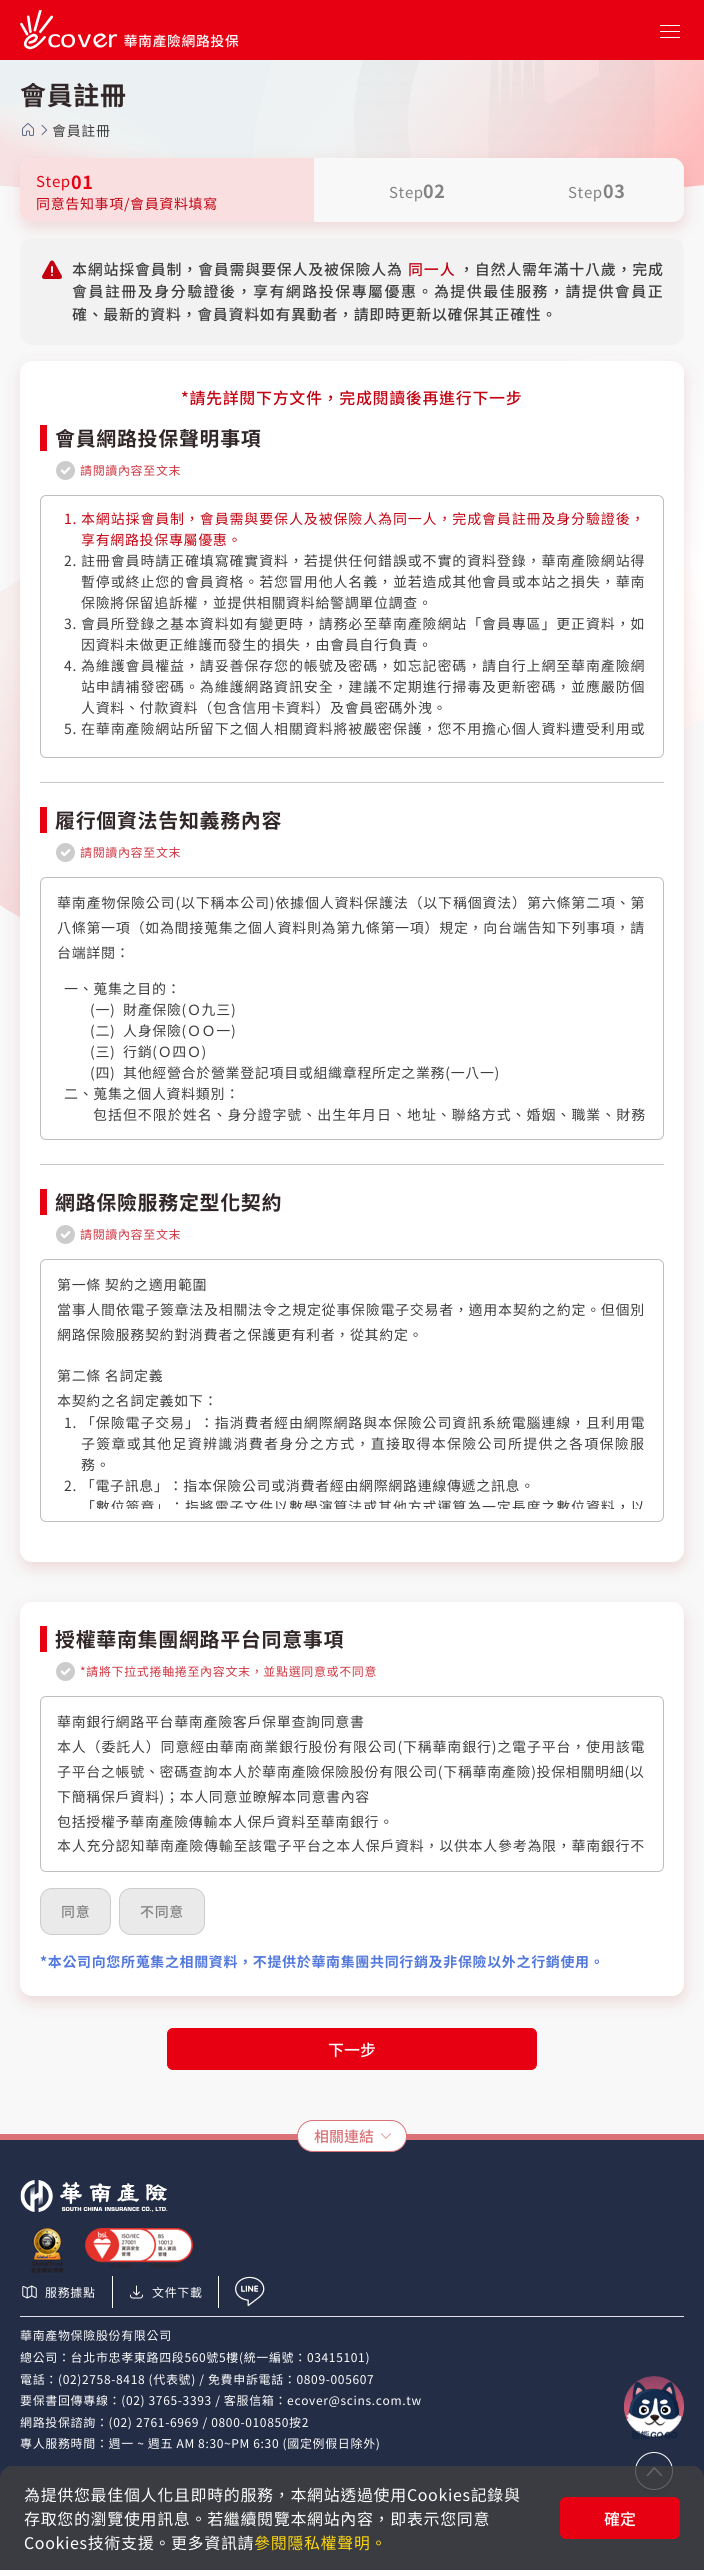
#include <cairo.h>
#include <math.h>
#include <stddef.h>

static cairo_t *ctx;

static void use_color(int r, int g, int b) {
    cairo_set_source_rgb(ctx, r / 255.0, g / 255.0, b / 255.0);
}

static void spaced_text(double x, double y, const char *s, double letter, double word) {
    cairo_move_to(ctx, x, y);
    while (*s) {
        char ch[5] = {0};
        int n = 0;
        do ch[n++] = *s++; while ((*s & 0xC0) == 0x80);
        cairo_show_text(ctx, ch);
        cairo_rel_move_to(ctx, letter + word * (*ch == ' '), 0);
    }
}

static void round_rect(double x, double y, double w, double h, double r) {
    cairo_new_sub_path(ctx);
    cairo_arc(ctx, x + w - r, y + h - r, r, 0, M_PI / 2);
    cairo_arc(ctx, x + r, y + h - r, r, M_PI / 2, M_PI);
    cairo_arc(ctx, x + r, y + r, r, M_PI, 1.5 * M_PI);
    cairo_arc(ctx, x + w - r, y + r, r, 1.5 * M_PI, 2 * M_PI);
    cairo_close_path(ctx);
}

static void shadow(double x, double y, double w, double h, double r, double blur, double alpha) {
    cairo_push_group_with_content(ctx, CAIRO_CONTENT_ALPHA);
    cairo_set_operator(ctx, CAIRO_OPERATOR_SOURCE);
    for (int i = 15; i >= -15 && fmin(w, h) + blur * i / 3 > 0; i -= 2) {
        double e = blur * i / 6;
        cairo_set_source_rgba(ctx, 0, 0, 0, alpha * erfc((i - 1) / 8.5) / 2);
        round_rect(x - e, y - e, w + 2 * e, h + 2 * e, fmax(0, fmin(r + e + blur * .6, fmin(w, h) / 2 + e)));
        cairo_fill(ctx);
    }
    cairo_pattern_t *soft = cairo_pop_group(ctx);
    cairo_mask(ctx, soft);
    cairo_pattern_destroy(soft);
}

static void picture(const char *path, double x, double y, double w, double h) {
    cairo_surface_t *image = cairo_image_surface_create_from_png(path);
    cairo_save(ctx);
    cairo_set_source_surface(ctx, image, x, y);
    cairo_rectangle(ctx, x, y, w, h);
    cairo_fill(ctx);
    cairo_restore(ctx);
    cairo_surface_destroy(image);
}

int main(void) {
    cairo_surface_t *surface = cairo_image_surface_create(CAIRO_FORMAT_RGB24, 704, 2570);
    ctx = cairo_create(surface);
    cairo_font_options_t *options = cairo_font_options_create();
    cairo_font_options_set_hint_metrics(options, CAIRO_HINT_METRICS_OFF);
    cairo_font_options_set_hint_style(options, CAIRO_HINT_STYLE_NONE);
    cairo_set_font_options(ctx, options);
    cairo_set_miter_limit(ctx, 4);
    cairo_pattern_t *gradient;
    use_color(248, 248, 248);
    cairo_paint(ctx);
    use_color(230, 0, 18);
    cairo_rectangle(ctx, 0, 0, 704, 60);
    cairo_fill(ctx);
    picture("img1.png", 20, 10, 219, 40);
    use_color(255, 255, 255);
    cairo_rectangle(ctx, 660, 31, 20, 1);
    cairo_fill(ctx);
    cairo_rectangle(ctx, 660, 25, 20, 1);
    cairo_fill(ctx);
    cairo_rectangle(ctx, 660, 37, 20, 1);
    cairo_fill(ctx);
    gradient = cairo_pattern_create_linear(544, 685, 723, 385);
    cairo_pattern_add_color_stop_rgba(gradient, 0, 1, 0.965, 0.965, 1);
    cairo_pattern_add_color_stop_rgba(gradient, 0.52, 1, 1, 1, 1);
    cairo_pattern_add_color_stop_rgba(gradient, 1, 0.976, 0.976, 0.976, 1);
    cairo_set_source(ctx, gradient);
    cairo_pattern_destroy(gradient);
    cairo_new_path(ctx);
    cairo_move_to(ctx, 439, 615);
    cairo_curve_to(ctx, 401, 516, 451, 405, 550, 368);
    cairo_curve_to(ctx, 649, 330, 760, 380, 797, 479);
    cairo_curve_to(ctx, 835, 578, 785, 689, 686, 727);
    cairo_curve_to(ctx, 587, 764, 476, 714, 439, 615);
    cairo_close_path(ctx);
    cairo_fill(ctx);
    gradient = cairo_pattern_create_linear(219, 896, 67, 604);
    cairo_pattern_add_color_stop_rgba(gradient, 0, 0.957, 0.827, 0.831, 1);
    cairo_pattern_add_color_stop_rgba(gradient, 1, 0.969, 0.937, 0.937, 1);
    cairo_set_source(ctx, gradient);
    cairo_pattern_destroy(gradient);
    cairo_new_path(ctx);
    cairo_move_to(ctx, 284, 665);
    cairo_curve_to(ctx, 330, 760, 290, 875, 195, 921);
    cairo_curve_to(ctx, 99, 967, -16, 927, -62, 832);
    cairo_curve_to(ctx, -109, 736, -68, 622, 27, 576);
    cairo_curve_to(ctx, 123, 529, 238, 569, 284, 665);
    cairo_close_path(ctx);
    cairo_fill(ctx);
    picture("img2.png", 0, 60, 704, 128);
    cairo_select_font_face(ctx, "Noto Sans TC", CAIRO_FONT_SLANT_NORMAL, CAIRO_FONT_WEIGHT_BOLD);
    cairo_set_font_size(ctx, 26);
    use_color(50, 39, 40);
    spaced_text(20, 105, "會員註冊", 0.65, 0);
    picture("img3.png", 22, 123, 12, 13);
    picture("img4.png", 41, 124, 7, 12);
    cairo_select_font_face(ctx, "Noto Sans TC", CAIRO_FONT_SLANT_NORMAL, CAIRO_FONT_WEIGHT_NORMAL);
    cairo_set_font_size(ctx, 14);
    use_color(61, 61, 61);
    spaced_text(52, 136, "會員註冊", 0.65, 0);
    use_color(206, 121, 121);
    shadow(21, 164, 664, 64, 12, 7.5, 0.25);
    use_color(248, 248, 248);
    round_rect(20, 158, 664, 64, 12);
    cairo_fill(ctx);
    use_color(250, 223, 225);
    cairo_new_path(ctx);
    cairo_move_to(ctx, 32, 158);
    cairo_line_to(ctx, 314, 158);
    cairo_line_to(ctx, 314, 222);
    cairo_line_to(ctx, 32, 222);
    cairo_curve_to(ctx, 25.5, 222, 20, 216.5, 20, 210);
    cairo_line_to(ctx, 20, 170);
    cairo_curve_to(ctx, 20, 163.5, 25.5, 158, 32, 158);
    cairo_close_path(ctx);
    cairo_fill(ctx);
    cairo_set_font_size(ctx, 15);
    use_color(230, 0, 18);
    spaced_text(36, 187, "Step", 0.65, 0);
    cairo_select_font_face(ctx, "Noto Sans TC", CAIRO_FONT_SLANT_NORMAL, CAIRO_FONT_WEIGHT_BOLD);
    cairo_set_font_size(ctx, 18);
    spaced_text(71, 189, "01", 0.65, 0);
    cairo_select_font_face(ctx, "Noto Sans TC", CAIRO_FONT_SLANT_NORMAL, CAIRO_FONT_WEIGHT_NORMAL);
    cairo_set_font_size(ctx, 14);
    use_color(195, 0, 15);
    spaced_text(36, 209, "同意告知事項/會員資料填寫", 0.65, 0);
    cairo_set_font_size(ctx, 15);
    use_color(130, 130, 130);
    spaced_text(389, 198, "Step", 0.65, 0);
    cairo_select_font_face(ctx, "Noto Sans TC", CAIRO_FONT_SLANT_NORMAL, CAIRO_FONT_WEIGHT_BOLD);
    cairo_set_font_size(ctx, 18);
    spaced_text(423, 198, "02", 0.65, 0);
    use_color(248, 248, 248);
    cairo_new_path(ctx);
    cairo_move_to(ctx, 494, 158);
    cairo_line_to(ctx, 672, 158);
    cairo_curve_to(ctx, 678.5, 158, 684, 163.5, 684, 170);
    cairo_line_to(ctx, 684, 210);
    cairo_curve_to(ctx, 684, 216.5, 678.5, 222, 672, 222);
    cairo_line_to(ctx, 494, 222);
    cairo_close_path(ctx);
    cairo_fill(ctx);
    cairo_select_font_face(ctx, "Noto Sans TC", CAIRO_FONT_SLANT_NORMAL, CAIRO_FONT_WEIGHT_NORMAL);
    cairo_set_font_size(ctx, 15);
    use_color(130, 130, 130);
    spaced_text(568, 198, "Step", 0.65, 0);
    cairo_select_font_face(ctx, "Noto Sans TC", CAIRO_FONT_SLANT_NORMAL, CAIRO_FONT_WEIGHT_BOLD);
    cairo_set_font_size(ctx, 18);
    spaced_text(603, 198, "03", 0.65, 0);
    use_color(242, 242, 243);
    round_rect(20, 238, 664, 107, 12);
    cairo_fill(ctx);
    picture("img5.png", 42, 260, 20, 19);
    cairo_select_font_face(ctx, "Noto Sans TC Medium", CAIRO_FONT_SLANT_NORMAL, CAIRO_FONT_WEIGHT_NORMAL);
    cairo_set_font_size(ctx, 15);
    use_color(61, 61, 61);
    spaced_text(72, 275, "本網站採會員制，會員需與要保人及被保險人為", 0.75, 0);
    use_color(195, 0, 15);
    spaced_text(408, 275, "同一人", 0.85, 0);
    use_color(61, 61, 61);
    spaced_text(459, 275, "，自然人需年滿十八歲，完成", 0.75, 0);
    spaced_text(72, 297, "會員註冊及身分驗證後，享有網路投保專屬優惠。為提供最佳服務，請提供會員正", 1.45, 0);
    spaced_text(72, 320, "確、最新的資料，會員資料如有異動者，請即時更新以確保其正確性。", 0.65, 0);
    use_color(206, 121, 121);
    shadow(21, 367, 664, 1201, 12, 7.5, 0.25);
    use_color(255, 255, 255);
    round_rect(20, 361, 664, 1201, 12);
    cairo_fill(ctx);
    cairo_set_font_size(ctx, 16);
    use_color(195, 0, 15);
    spaced_text(181, 404, "*請先詳閱下方文件，完成閱讀後再進行下一步", 0.65, 0);
    use_color(230, 0, 18);
    cairo_rectangle(ctx, 40, 425, 7, 26);
    cairo_fill(ctx);
    cairo_select_font_face(ctx, "Noto Sans TC", CAIRO_FONT_SLANT_NORMAL, CAIRO_FONT_WEIGHT_BOLD);
    cairo_set_font_size(ctx, 20);
    use_color(50, 39, 40);
    spaced_text(55, 446, "會員網路投保聲明事項", 0.65, 0);
    use_color(204, 204, 204);
    cairo_new_path(ctx);
    cairo_arc(ctx, 65.5, 470.5, 9.5, 0, 2 * M_PI);
    cairo_fill(ctx);
    picture("img6.png", 60, 467, 11, 8);
    cairo_select_font_face(ctx, "Noto Sans TC", CAIRO_FONT_SLANT_NORMAL, CAIRO_FONT_WEIGHT_NORMAL);
    cairo_set_font_size(ctx, 12);
    use_color(207, 51, 63);
    spaced_text(80, 475, "請閱讀內容至文末", 0.65, 0);
    round_rect(40.5, 495.5, 623, 262, 5.5);
    use_color(191, 191, 191);
    cairo_set_line_width(ctx, 1);
    cairo_stroke(ctx);
    cairo_set_font_size(ctx, 14);
    use_color(195, 0, 15);
    spaced_text(64, 524, "1.", 0.65, 0);
    spaced_text(81, 524, "本網站採會員制，會員需與要保人及被保險人為同一人，完成會員註冊及身分驗證後，", 0.85, 0);
    spaced_text(81, 545, "享有網路投保專屬優惠。", 0.65, 0);
    use_color(61, 61, 61);
    spaced_text(64, 566, "2.", 0.65, 0);
    spaced_text(81, 566, "註冊會員時請正確填寫確實資料，若提供任何錯誤或不實的資料登錄，華南產險網站得", 0.85, 0);
    spaced_text(81, 587, "暫停或終止您的會員資格。若您冒用他人名義，並若造成其他會員或本站之損失，華南", 0.85, 0);
    spaced_text(81, 608, "保險將保留追訴權，並提供相關資料給警調單位調查。", 0.65, 0);
    spaced_text(64, 629, "3.", 0.65, 0);
    spaced_text(81, 629, "會員所登錄之基本資料如有變更時，請務必至華南產險網站「會員專區」更正資料，如", 0.85, 0);
    spaced_text(81, 650, "因資料未做更正維護而發生的損失，由會員自行負責。", 0.65, 0);
    spaced_text(64, 671, "4.", 0.65, 0);
    spaced_text(81, 671, "為維護會員權益，請妥善保存您的帳號及密碼，如忘記密碼，請自行上網至華南產險網", 0.85, 0);
    spaced_text(81, 692, "站申請補發密碼。為維護網路資訊安全，建議不定期進行掃毒及更新密碼，並應嚴防個", 0.85, 0);
    spaced_text(81, 713, "人資料、付款資料（包含信用卡資料）及會員密碼外洩。", 0.65, 0);
    spaced_text(64, 734, "5.", 0.65, 0);
    spaced_text(81, 734, "在華南產險網站所留下之個人相關資料將被嚴密保護，您不用擔心個人資料遭受利用或", 0.85, 0);
    use_color(199, 199, 199);
    cairo_rectangle(ctx, 40, 782, 624, 1);
    cairo_fill(ctx);
    use_color(230, 0, 18);
    cairo_rectangle(ctx, 40, 807, 7, 26);
    cairo_fill(ctx);
    cairo_select_font_face(ctx, "Noto Sans TC", CAIRO_FONT_SLANT_NORMAL, CAIRO_FONT_WEIGHT_BOLD);
    cairo_set_font_size(ctx, 20);
    use_color(50, 39, 40);
    spaced_text(55, 828, "履行個資法告知義務內容", 0.65, 0);
    use_color(204, 204, 204);
    cairo_new_path(ctx);
    cairo_arc(ctx, 65.5, 852.5, 9.5, 0, 2 * M_PI);
    cairo_fill(ctx);
    picture("img6.png", 60, 849, 11, 8);
    cairo_select_font_face(ctx, "Noto Sans TC", CAIRO_FONT_SLANT_NORMAL, CAIRO_FONT_WEIGHT_NORMAL);
    cairo_set_font_size(ctx, 12);
    use_color(207, 51, 63);
    spaced_text(80, 857, "請閱讀內容至文末", 0.65, 0);
    round_rect(40.5, 877.5, 623, 262, 5.5);
    use_color(191, 191, 191);
    cairo_stroke(ctx);
    cairo_set_font_size(ctx, 14);
    use_color(61, 61, 61);
    spaced_text(57, 908, "華南產物保險公司(以下稱本公司)依據個人資料保護法（以下稱個資法）第六條第二項、第", 0.8, 0);
    spaced_text(57, 933, "八條第一項（如為間接蒐集之個人資料則為第九條第一項）規定，向台端告知下列事項，請", 0.7, 0);
    spaced_text(57, 958, "台端詳閱：", 0.65, 0);
    spaced_text(64, 994, "一、蒐集之目的：", 0.65, 0);
    spaced_text(90, 1015, "(一)", 0.65, 0);
    spaced_text(123, 1015, "財產保險(Ｏ九三)", 0.65, 0);
    spaced_text(90, 1036, "(二)", 0.65, 0);
    spaced_text(123, 1036, "人身保險(ＯＯ一)", 0.65, 0);
    spaced_text(90, 1057, "(三)", 0.65, 0);
    spaced_text(123, 1057, "行銷(Ｏ四Ｏ)", 0.65, 0);
    spaced_text(90, 1078, "(四)", 0.65, 0);
    spaced_text(123, 1078, "其他經營合於營業登記項目或組織章程所定之業務(一八一)", 0.65, 0);
    spaced_text(64, 1099, "二、蒐集之個人資料類別：", 0.65, 0);
    spaced_text(93, 1120, "包括但不限於姓名、身分證字號、出生年月日、地址、聯絡方式、婚姻、職業、財務", 0.95, 0);
    use_color(199, 199, 199);
    cairo_rectangle(ctx, 40, 1164, 624, 1);
    cairo_fill(ctx);
    use_color(230, 0, 18);
    cairo_rectangle(ctx, 40, 1189, 7, 26);
    cairo_fill(ctx);
    cairo_select_font_face(ctx, "Noto Sans TC", CAIRO_FONT_SLANT_NORMAL, CAIRO_FONT_WEIGHT_BOLD);
    cairo_set_font_size(ctx, 20);
    use_color(50, 39, 40);
    spaced_text(55, 1210, "網路保險服務定型化契約", 0.65, 0);
    use_color(204, 204, 204);
    cairo_new_path(ctx);
    cairo_arc(ctx, 65.5, 1234.5, 9.5, 0, 2 * M_PI);
    cairo_fill(ctx);
    picture("img6.png", 60, 1231, 11, 8);
    cairo_select_font_face(ctx, "Noto Sans TC", CAIRO_FONT_SLANT_NORMAL, CAIRO_FONT_WEIGHT_NORMAL);
    cairo_set_font_size(ctx, 12);
    use_color(207, 51, 63);
    spaced_text(80, 1239, "請閱讀內容至文末", 0.65, 0);
    round_rect(40.5, 1259.5, 623, 262, 5.5);
    use_color(191, 191, 191);
    cairo_stroke(ctx);
    cairo_set_font_size(ctx, 14);
    use_color(61, 61, 61);
    spaced_text(57, 1290, "第一條 契約之適用範圍", 0.65, 0);
    spaced_text(57, 1315, "當事人間依電子簽章法及相關法令之規定從事保險電子交易者，適用本契約之約定。但個別", 0.7, 0);
    spaced_text(57, 1340, "網路保險服務契約對消費者之保護更有利者，從其約定。", 0.65, 0);
    spaced_text(57, 1381, "第二條 名詞定義", 0.65, 0);
    spaced_text(57, 1406, "本契約之名詞定義如下：", 0.65, 0);
    spaced_text(64, 1428, "1.", 0.65, 0);
    spaced_text(81, 1428, "「保險電子交易」：指消費者經由網際網路與本保險公司資訊系統電腦連線，且利用電", 0.85, 0);
    spaced_text(81, 1449, "子簽章或其他足資辨識消費者身分之方式，直接取得本保險公司所提供之各項保險服", 1.25, 0);
    spaced_text(81, 1470, "務。", 0.65, 0);
    spaced_text(64, 1491, "2. 「電子訊息」：指本保險公司或消費者經由網際網路連線傳遞之訊息。", 0.65, 0);
    cairo_save(ctx);
    cairo_rectangle(ctx, 57, 1272, 598, 237);
    cairo_clip(ctx);
    spaced_text(81, 1512, "「數位簽章」：指將電子文件以數學演算法或其他方式運算為一定長度之數位資料，以", 0.85, 0);
    cairo_restore(ctx);
    use_color(206, 121, 121);
    shadow(21, 1608, 664, 394, 12, 7.5, 0.25);
    use_color(255, 255, 255);
    round_rect(20, 1602, 664, 394, 12);
    cairo_fill(ctx);
    use_color(230, 0, 18);
    cairo_rectangle(ctx, 40, 1626, 7, 26);
    cairo_fill(ctx);
    cairo_select_font_face(ctx, "Noto Sans TC", CAIRO_FONT_SLANT_NORMAL, CAIRO_FONT_WEIGHT_BOLD);
    cairo_set_font_size(ctx, 20);
    use_color(50, 39, 40);
    spaced_text(55, 1647, "授權華南集團網路平台同意事項", 0.65, 0);
    use_color(204, 204, 204);
    cairo_new_path(ctx);
    cairo_arc(ctx, 65.5, 1671.5, 9.5, 0, 2 * M_PI);
    cairo_fill(ctx);
    picture("img6.png", 60, 1668, 11, 8);
    cairo_select_font_face(ctx, "Noto Sans TC", CAIRO_FONT_SLANT_NORMAL, CAIRO_FONT_WEIGHT_NORMAL);
    cairo_set_font_size(ctx, 12);
    use_color(207, 51, 63);
    spaced_text(80, 1676, "*請將下拉式捲軸捲至內容文末，並點選同意或不同意", 0.65, 0);
    round_rect(40.5, 1696.5, 623, 175, 5.5);
    use_color(191, 191, 191);
    cairo_stroke(ctx);
    cairo_set_font_size(ctx, 14);
    use_color(61, 61, 61);
    spaced_text(57, 1727, "華南銀行網路平台華南產險客戶保單查詢同意書", 0.65, 0);
    spaced_text(57, 1752, "本人（委託人）同意經由華南商業銀行股份有限公司(下稱華南銀行)之電子平台，使用該電", 0.8, 0);
    spaced_text(57, 1777, "子平台之帳號、密碼查詢本人於華南產險保險股份有限公司(下稱華南產險)投保相關明細(以", 0.65, 0);
    spaced_text(57, 1802, "下簡稱保戶資料)；本人同意並瞭解本同意書內容", 0.65, 0);
    spaced_text(57, 1827, "包括授權予華南產險傳輸本人保戶資料至華南銀行。", 0.65, 0);
    spaced_text(57, 1851, "本人充分認知華南產險傳輸至該電子平台之本人保戶資料，以供本人參考為限，華南銀行不", 0.7, 0);
    use_color(234, 234, 234);
    round_rect(40.5, 1888.5, 70, 46, 11.5);
    cairo_fill_preserve(ctx);
    use_color(204, 204, 204);
    cairo_stroke(ctx);
    cairo_select_font_face(ctx, "Noto Sans TC Medium", CAIRO_FONT_SLANT_NORMAL, CAIRO_FONT_WEIGHT_NORMAL);
    use_color(130, 130, 130);
    spaced_text(61, 1917, "同意", 0.65, 0);
    use_color(234, 234, 234);
    round_rect(119.5, 1888.5, 85, 46, 11.5);
    cairo_fill_preserve(ctx);
    use_color(204, 204, 204);
    cairo_stroke(ctx);
    use_color(130, 130, 130);
    spaced_text(140, 1917, "不同意", 0.65, 0);
    cairo_select_font_face(ctx, "Noto Sans TC", CAIRO_FONT_SLANT_NORMAL, CAIRO_FONT_WEIGHT_BOLD);
    use_color(82, 120, 219);
    spaced_text(40, 1967, "*本公司向您所蒐集之相關資料，不提供於華南集團共同行銷及非保險以外之行銷使用。", 0.65, 0);
    use_color(230, 0, 18);
    round_rect(167.5, 2028.5, 369, 41, 5.5);
    cairo_fill_preserve(ctx);
    cairo_stroke(ctx);
    cairo_select_font_face(ctx, "Noto Sans TC Medium", CAIRO_FONT_SLANT_NORMAL, CAIRO_FONT_WEIGHT_NORMAL);
    cairo_set_font_size(ctx, 16);
    use_color(255, 255, 255);
    cairo_move_to(ctx, 328, 2056);
    cairo_show_text(ctx, "下一步");
    use_color(218, 114, 119);
    cairo_rectangle(ctx, 0, 2134, 704, 6);
    cairo_fill(ctx);
    use_color(35, 45, 70);
    cairo_rectangle(ctx, 0, 2140, 704, 430);
    cairo_fill(ctx);
    use_color(255, 255, 255);
    round_rect(297.5, 2120.5, 109, 31, 15.5);
    cairo_fill_preserve(ctx);
    use_color(218, 114, 119);
    cairo_stroke(ctx);
    cairo_set_font_size(ctx, 15);
    cairo_move_to(ctx, 314, 2142);
    cairo_show_text(ctx, "相關連結");
    picture("img7.png", 381, 2133, 10, 6);
    picture("img8.png", 20, 2180, 148, 32);
    picture("img9.png", 31, 2228, 33, 45);
    picture("img10.png", 85, 2228, 108, 40);
    use_color(222, 226, 230);
    cairo_rectangle(ctx, 20, 2316, 664, 1);
    cairo_fill(ctx);
    use_color(255, 255, 255);
    cairo_rectangle(ctx, 112, 2276, 1, 32);
    cairo_fill(ctx);
    picture("img11.png", 22, 2285, 15, 14);
    cairo_select_font_face(ctx, "Noto Sans TC", CAIRO_FONT_SLANT_NORMAL, CAIRO_FONT_WEIGHT_NORMAL);
    cairo_set_font_size(ctx, 12);
    spaced_text(45, 2297, "服務據點", 0.65, 0);
    cairo_rectangle(ctx, 218, 2276, 1, 32);
    cairo_fill(ctx);
    picture("img12.png", 130, 2285, 13, 14);
    spaced_text(152, 2297, "文件下載", 0.65, 0);
    picture("img13.png", 235, 2276, 30, 31);
    spaced_text(20, 2340, "華南產物保險股份有限公司", 0.65, 0);
    spaced_text(20, 2362, "總公司：台北市忠孝東路四段560號5樓(統一編號：03415101)", 0.65, 0);
    spaced_text(20, 2384, "電話：(02)2758-8418 (代表號) / 免費申訴電話：0809-005607", 0.65, 0);
    spaced_text(20, 2405, "要保書回傳專線：(02) 3765-3393 / 客服信箱：ecover@scins.com.tw", 0.65, 0);
    spaced_text(20, 2427, "網路投保諮詢：(02) 2761-6969 / 0800-010850按2", 0.65, 0);
    spaced_text(20, 2448, "專人服務時間：週一 ~ 週五 AM 8:30~PM 6:30 (國定例假日除外)", 0.65, 0);
    picture("img14.png", 624, 2376, 60, 63);
    use_color(0, 0, 0);
    shadow(636, 2456, 38, 38, 19, 2, 0.25);
    use_color(35, 45, 70);
    cairo_arc(ctx, 654, 2471, 19, 0, 2 * M_PI);
    cairo_fill(ctx);
    picture("img15.png", 646, 2467, 17, 10);
    cairo_arc(ctx, 654, 2471, 18.5, 0, 2 * M_PI);
    use_color(255, 255, 255);
    cairo_stroke(ctx);
    cairo_set_source_rgba(ctx, 0.251, 0.251, 0.251, 0.8);
    cairo_new_path(ctx);
    cairo_move_to(ctx, 12, 2466);
    cairo_line_to(ctx, 692, 2466);
    cairo_curve_to(ctx, 698.5, 2466, 704, 2471.5, 704, 2478);
    cairo_line_to(ctx, 704, 2570);
    cairo_line_to(ctx, 0, 2570);
    cairo_line_to(ctx, 0, 2478);
    cairo_curve_to(ctx, 0, 2471.5, 5.5, 2466, 12, 2466);
    cairo_close_path(ctx);
    cairo_fill(ctx);
    cairo_set_font_size(ctx, 16);
    use_color(255, 255, 255);
    spaced_text(24, 2501, "為提供您最佳個人化且即時的服務，本網站透過使用Cookies記錄與", 0.65, 0);
    spaced_text(24, 2525, "存取您的瀏覽使用訊息。若繼續閱覽本網站內容，即表示您同意", 0.65, 0);
    spaced_text(24, 2549, "Cookies技術支援。更多資訊請", 0.65, 0);
    use_color(255, 216, 12);
    spaced_text(254, 2549, "參閱隱私權聲明。", 0.65, 0);
    use_color(230, 0, 18);
    round_rect(560.5, 2497.5, 119, 41, 5.5);
    cairo_fill_preserve(ctx);
    cairo_stroke(ctx);
    cairo_select_font_face(ctx, "Noto Sans TC Medium", CAIRO_FONT_SLANT_NORMAL, CAIRO_FONT_WEIGHT_NORMAL);
    use_color(255, 255, 255);
    cairo_move_to(ctx, 604, 2525);
    cairo_show_text(ctx, "確定");
    cairo_surface_write_to_png(surface, "result.png");
    cairo_font_options_destroy(options);
    cairo_destroy(ctx);
    cairo_surface_destroy(surface);
    return 0;
}
